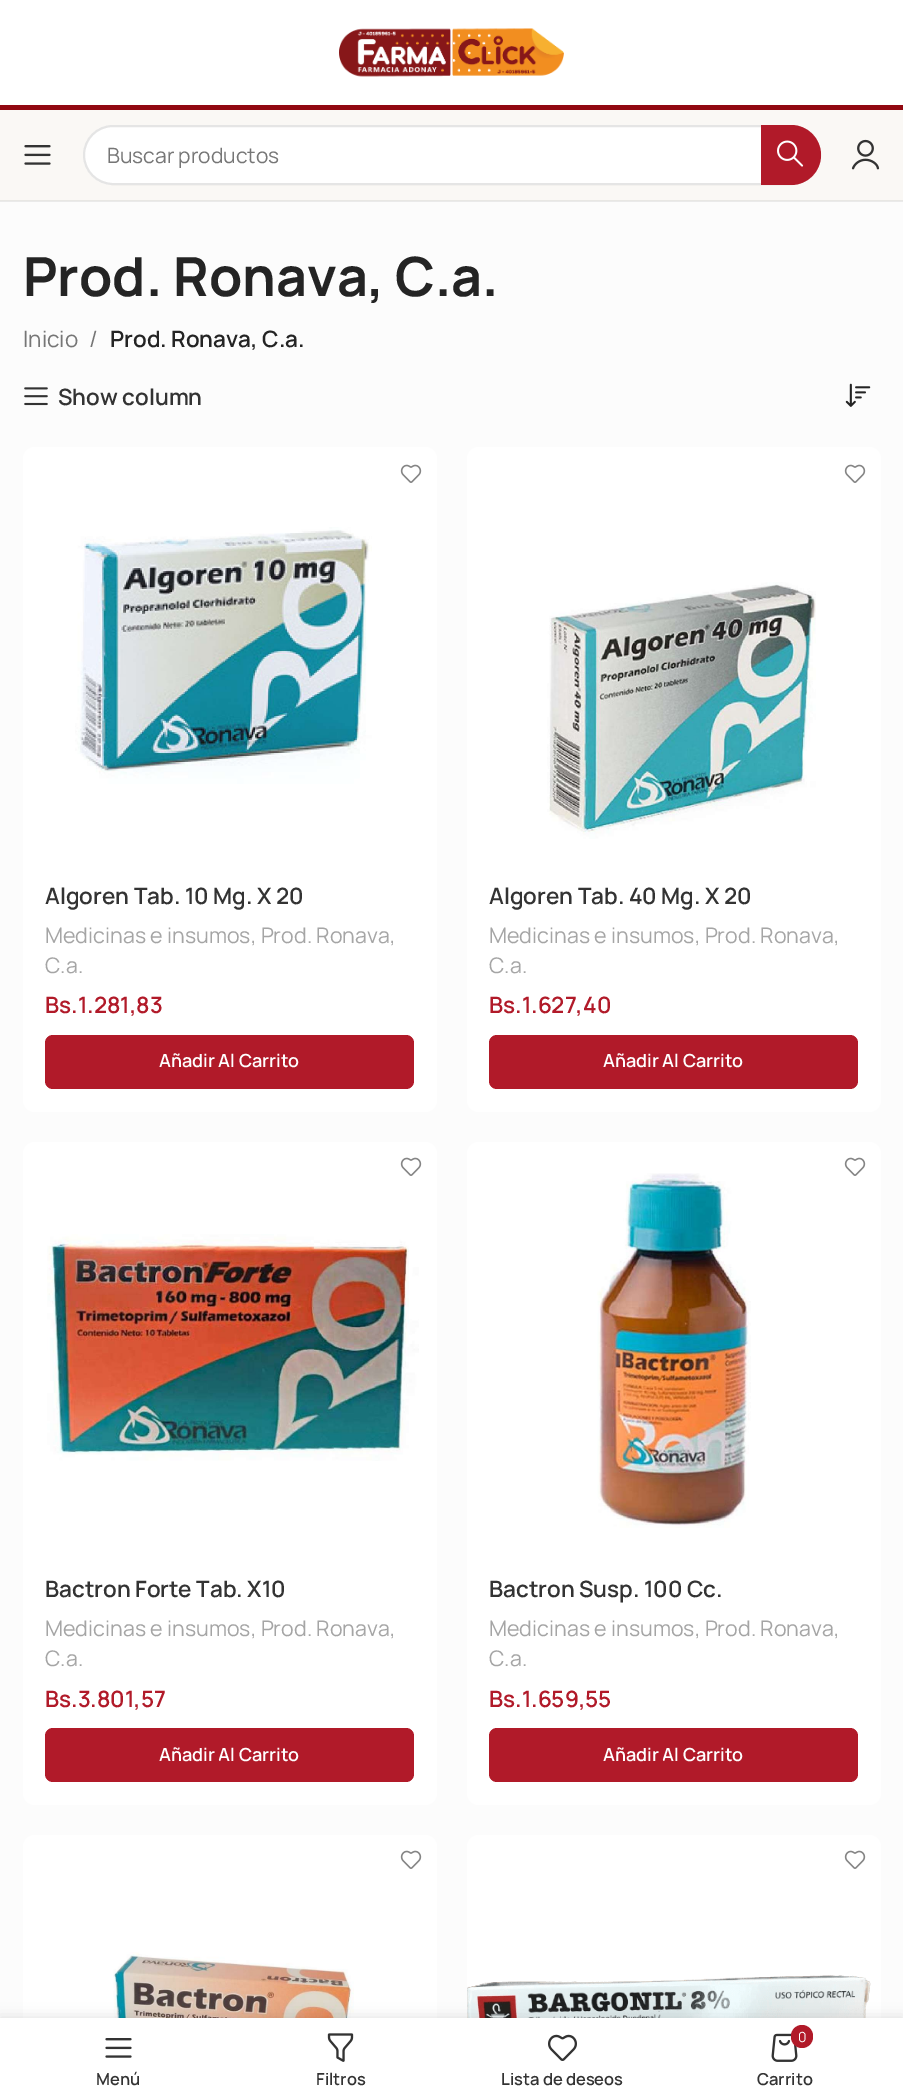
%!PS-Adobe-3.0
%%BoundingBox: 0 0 903 2100
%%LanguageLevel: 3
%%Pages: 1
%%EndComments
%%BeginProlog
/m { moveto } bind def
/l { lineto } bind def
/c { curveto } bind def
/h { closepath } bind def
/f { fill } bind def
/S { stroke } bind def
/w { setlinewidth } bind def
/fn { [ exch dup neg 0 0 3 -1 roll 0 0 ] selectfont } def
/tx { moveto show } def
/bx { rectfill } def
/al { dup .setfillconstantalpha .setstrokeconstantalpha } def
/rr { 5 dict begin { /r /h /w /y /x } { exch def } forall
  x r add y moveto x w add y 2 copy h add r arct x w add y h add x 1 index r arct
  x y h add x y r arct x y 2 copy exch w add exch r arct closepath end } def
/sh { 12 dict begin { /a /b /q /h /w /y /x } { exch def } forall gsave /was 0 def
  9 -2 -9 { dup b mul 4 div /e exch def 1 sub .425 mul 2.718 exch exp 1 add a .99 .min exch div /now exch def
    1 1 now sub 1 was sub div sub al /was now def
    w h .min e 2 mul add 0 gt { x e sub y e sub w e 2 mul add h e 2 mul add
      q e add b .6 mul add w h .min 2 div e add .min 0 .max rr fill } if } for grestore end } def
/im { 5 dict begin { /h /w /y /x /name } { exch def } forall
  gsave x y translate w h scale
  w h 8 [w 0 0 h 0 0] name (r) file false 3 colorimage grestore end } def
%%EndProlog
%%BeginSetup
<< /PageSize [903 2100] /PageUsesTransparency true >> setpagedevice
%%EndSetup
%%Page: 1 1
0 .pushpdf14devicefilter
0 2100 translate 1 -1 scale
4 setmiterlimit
1 setgray
0 0 903 2100 bx
0.569 0.031 0.067 setrgbcolor
0 105 903 5 bx
(image0.raw) 339 28 225 49 im
0.98 0.973 0.961 setrgbcolor
0 110 903 90 bx
0.91 0.906 0.894 setrgbcolor
0 200 903 1 bx
(image1.raw) 24 145 27 20 im
1 setgray
83 125 738 60 30 rr f
0.1 al
0 setgray
2 w
84 126 736 58 29 rr S
/Manrope-Regular 21 fn
1 al
0.463 setgray
(Buscar productos) 107 163 tx
0.694 0.102 0.161 setrgbcolor
761 125 m 791 125 l 807.5 125 821 138.5 821 155 c 821 171.5 807.5 185 791 185 c 761 185 l h f
(image2.raw) 777 140 27 27 im
(image3.raw) 851 139 29 31 im
0.988 setgray
0 202 903 1816 bx
0.918 setgray
0 201 903 1 bx
/Manrope-Bold 54 fn
0.141 setgray
(Prod. Ronava, C.a.) 23 296 tx
/Manrope-Regular 22.5 fn
0.463 setgray
(Inicio) 23 347 tx
(/) 89 347 tx
/Manrope-SemiBold 22.5 fn
0.141 setgray
(Prod. Ronava, C.a.) 110 347 tx
(image4.raw) 24 387 24 19 im
0.2 setgray
(Show column) 58 405 tx
(image5.raw) 845 383 26 24 im
1 setgray
23 447 414 665 12 rr f
(image6.raw) 400 464 22 19 im
(image7.raw) 75 527 297 257 im
0.2 setgray
(Algoren Tab. 10 Mg. X 20) 45 904 tx
/Manrope-Regular 21.4 fn
0.647 setgray
(Medicinas e insumos, Prod. Ronava,) 45 943 tx
(C.a.) 45 973 tx
/Manrope-SemiBold 22.5 fn
0.694 0.102 0.161 setrgbcolor
(Bs.1.281,83) 45 1013 tx
45 1035 369 54 8 rr f
/Manrope-SemiBold 18 fn
1 setgray
(Añadir Al Carrito) 159 1067 tx
467 447 414 665 12 rr f
(image6.raw) 844 464 22 19 im
(image8.raw) 547 582 269 257 im
/Manrope-SemiBold 22.5 fn
0.2 setgray
(Algoren Tab. 40 Mg. X 20) 489 904 tx
/Manrope-Regular 21.4 fn
0.647 setgray
(Medicinas e insumos, Prod. Ronava,) 489 943 tx
(C.a.) 489 973 tx
/Manrope-SemiBold 22.5 fn
0.694 0.102 0.161 setrgbcolor
(Bs.1.627,40) 489 1013 tx
489 1035 369 54 8 rr f
/Manrope-SemiBold 18 fn
1 setgray
(Añadir Al Carrito) 603 1067 tx
23 1142 414 663 12 rr f
(image6.raw) 400 1157 22 19 im
(image9.raw) 47 1234 372 227 im
/Manrope-SemiBold 22.5 fn
0.2 setgray
(Bactron Forte Tab. X10) 45 1597 tx
/Manrope-Regular 21.4 fn
0.647 setgray
(Medicinas e insumos, Prod. Ronava,) 45 1636 tx
(C.a.) 45 1666 tx
/Manrope-SemiBold 22.5 fn
0.694 0.102 0.161 setrgbcolor
(Bs.3.801,57) 45 1707 tx
45 1728 369 54 8 rr f
/Manrope-SemiBold 18 fn
1 setgray
(Añadir Al Carrito) 159 1761 tx
0.694 0.102 0.161 setrgbcolor
1.5 w
220.5 1764 m 215.5 1759 215.5 1751 220.5 1746 c S
1 setgray
467 1142 414 663 12 rr f
(image6.raw) 844 1157 22 19 im
(image10.raw) 597 1173 154 355 im
/Manrope-SemiBold 22.5 fn
0.2 setgray
(Bactron Susp. 100 Cc.) 489 1597 tx
/Manrope-Regular 21.4 fn
0.647 setgray
(Medicinas e insumos, Prod. Ronava,) 489 1636 tx
(C.a.) 489 1666 tx
/Manrope-SemiBold 22.5 fn
0.694 0.102 0.161 setrgbcolor
(Bs.1.659,55) 489 1707 tx
489 1728 369 54 8 rr f
/Manrope-SemiBold 18 fn
1 setgray
(Añadir Al Carrito) 603 1761 tx
0.694 0.102 0.161 setrgbcolor
664.5 1764 m 659.5 1759 659.5 1751 664.5 1746 c S
1 setgray
23 1835 414 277 12 rr f
(image6.raw) 400 1850 22 19 im
(image11.raw) 113 1952 241 66 im
467 1835 414 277 12 rr f
(image6.raw) 844 1850 22 19 im
(image12.raw) 467 1975 404 43 im
0 setgray
0 2018 903 82 0 7 0.12 sh
1 setgray
0 2018 903 82 bx
(image13.raw) 105 2038 27 20 im
/Manrope-SemiBold 16.5 fn
0.2 setgray
(Menú) 96 2085 tx
(image14.raw) 327 2033 27 29 im
(Filtros) 316 2085 tx
(image15.raw) 548 2034 29 27 im
(Lista de deseos) 501 2085 tx
(image16.raw) 771 2033 27 29 im
0.694 0.102 0.161 setrgbcolor
791 2025 22 23 11 rr f
/Manrope-Regular 14 fn
1 setgray
(0) 798 2042 tx
/Manrope-SemiBold 16.5 fn
0.2 setgray
(Carrito) 757 2085 tx
.poppdf14devicefilter showpage
%%EOF
